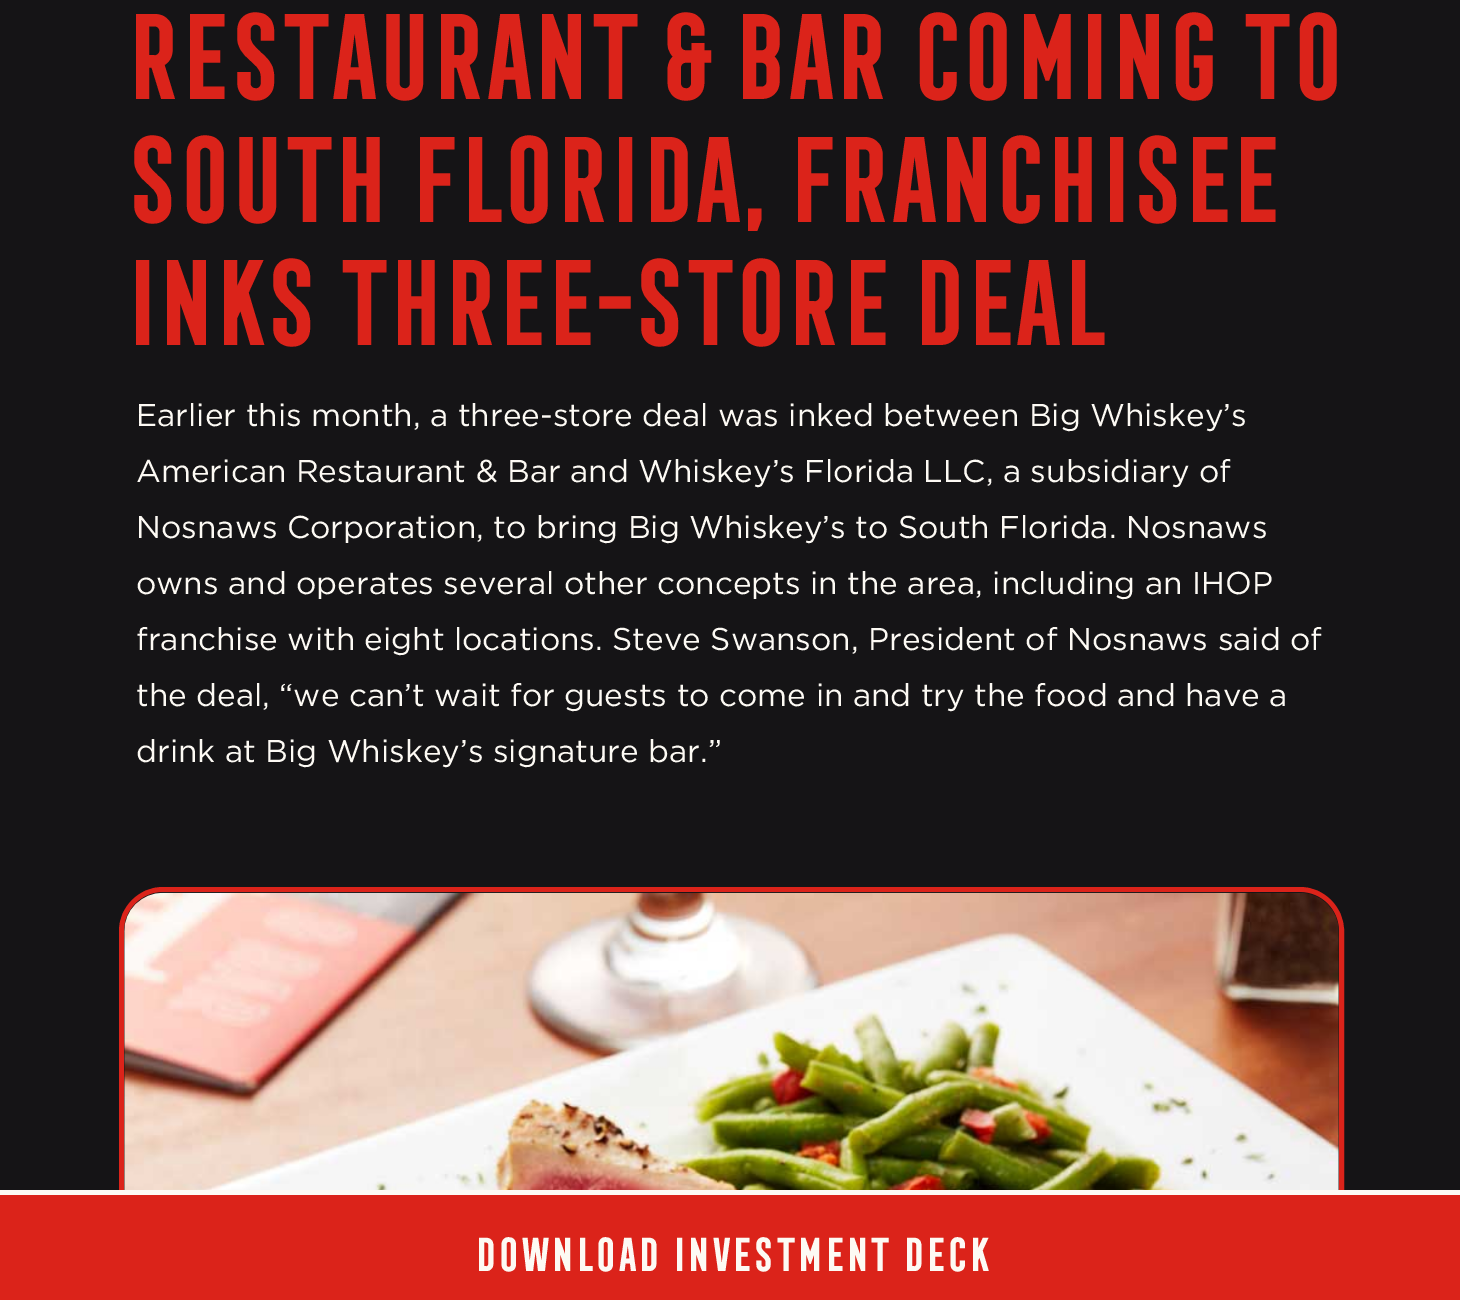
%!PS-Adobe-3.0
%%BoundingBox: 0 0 1460 1300
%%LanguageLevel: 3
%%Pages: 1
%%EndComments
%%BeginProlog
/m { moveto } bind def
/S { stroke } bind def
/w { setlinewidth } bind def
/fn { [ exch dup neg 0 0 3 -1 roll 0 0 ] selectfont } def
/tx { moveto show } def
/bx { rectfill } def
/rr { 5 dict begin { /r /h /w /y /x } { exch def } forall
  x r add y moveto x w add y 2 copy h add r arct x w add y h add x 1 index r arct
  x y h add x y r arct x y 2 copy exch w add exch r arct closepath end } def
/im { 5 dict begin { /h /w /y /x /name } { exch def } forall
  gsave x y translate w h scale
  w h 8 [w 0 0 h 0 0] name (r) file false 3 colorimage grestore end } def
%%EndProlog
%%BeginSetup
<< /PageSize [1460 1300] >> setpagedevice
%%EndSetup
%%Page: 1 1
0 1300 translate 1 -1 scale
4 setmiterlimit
0.082 0.078 0.086 setrgbcolor
0 0 1460 1300 bx
/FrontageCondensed-Bold 112 fn
0.859 0.137 0.102 setrgbcolor
118 99 m -11.2 0 (RESTAURANT & BAR COMING TO) ashow
118 222 m -11.2 0 (SOUTH FLORIDA, FRANCHISEE) ashow
118 345 m -11.2 0 (INKS THREE-STORE DEAL) ashow
/Gotham-Regular 31.5 fn
0.992 0.98 0.957 setrgbcolor
(Earlier this month, a three-store deal was inked between Big Whiskey’s) 136 426 tx
(American Restaurant & Bar and Whiskey’s Florida LLC, a subsidiary of) 136 482 tx
(Nosnaws Corporation, to bring Big Whiskey’s to South Florida. Nosnaws) 136 538 tx
(owns and operates several other concepts in the area, including an IHOP) 136 594 tx
(franchise with eight locations. Steve Swanson, President of Nosnaws said of) 136 650 tx
(the deal, “we can’t wait for guests to come in and try the food and have a) 136 706 tx
(drink at Big Whiskey’s signature bar.”) 136 762 tx
0.859 0.137 0.102 setrgbcolor
5 w
121.5 889.5 1220 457 41.5 rr S
(image0.raw) 124 892 1215 298 im
0.992 0.98 0.957 setrgbcolor
0 1190 1460 5 bx
0.859 0.137 0.102 setrgbcolor
0 1195 1460 105 bx
/FrontageCondensed-Bold 43.8 fn
0.992 0.98 0.957 setrgbcolor
472 1271 m -2.2 0 (DOWNLOAD INVESTMENT DECK) ashow
showpage
%%EOF
